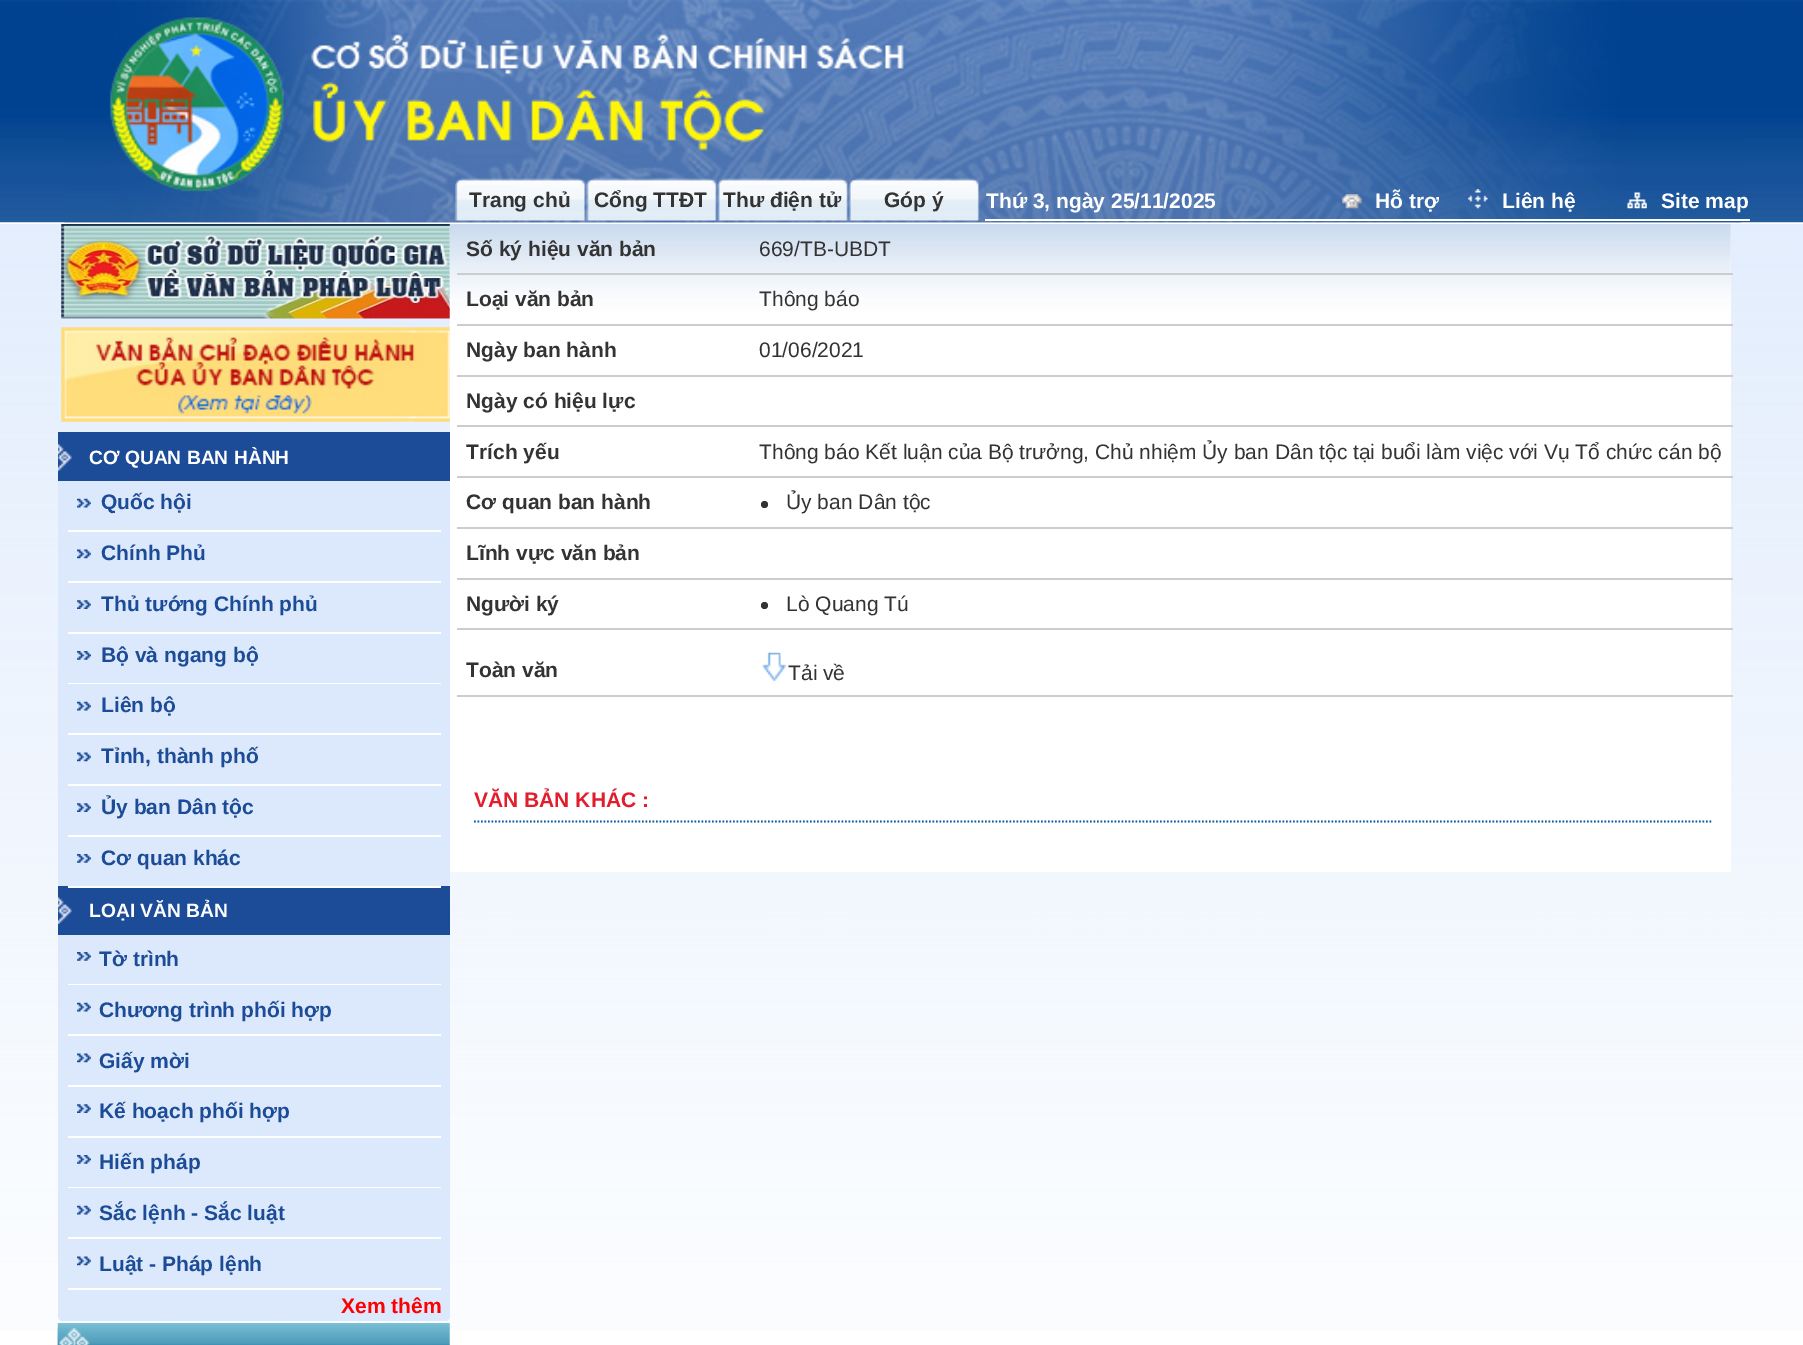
%!PS-Adobe-3.0
%%BoundingBox: 0 0 1803 1345
%%LanguageLevel: 3
%%Pages: 1
%%EndComments
%%BeginProlog
/m { moveto } bind def
/l { lineto } bind def
/c { curveto } bind def
/h { closepath } bind def
/f { fill } bind def
/S { stroke } bind def
/w { setlinewidth } bind def
/fn { [ exch dup neg 0 0 3 -1 roll 0 0 ] selectfont } def
/tx { moveto show } def
/bx { rectfill } def
/ci { newpath 0 360 arc closepath } def
/im { 5 dict begin { /h /w /y /x /name } { exch def } forall
  gsave x y translate w h scale
  w h 8 [w 0 0 h 0 0] name (r) file false 3 colorimage grestore end } def
%%EndProlog
%%BeginSetup
<< /PageSize [1803 1345] >> setpagedevice
%%EndSetup
%%Page: 1 1
0 1345 translate 1 -1 scale
4 setmiterlimit
1 setgray
0 0 1803 1345 bx
(image0.raw) 0 0 1803 223 im
(image1.raw) 64 0 1678 223 im
(image2.raw) 455 178 131 43 im
/LiberationSans-Bold 21 fn
0.2 setgray
(Trang chủ) 469 207 tx
(image3.raw) 586 178 131 43 im
(Cổng TTĐT) 594 207 tx
(image4.raw) 717 178 132 43 im
(Thư điện tử) 723 207 tx
(image5.raw) 848 178 132 43 im
(Góp ý) 884 207 tx
1 setgray
985 219 765 2 bx
(Thứ 3, ngày 25/11/2025) 986 208 tx
(image6.raw) 1342 194 20 15 im
(Hỗ trợ) 1375 208 tx
(image7.raw) 1468 189 20 20 im
(Liên hệ) 1502 208 tx
(image8.raw) 1627 192 20 17 im
(Site map) 1661 208 tx
(image9.raw) 0 224 1803 1106 im
(image10.raw) 61 224 389 95 im
(image11.raw) 61 327 389 95 im
0.11 0.298 0.596 setrgbcolor
58 432 392 49 bx
(image12.raw) 57 443 15 28 im
/LiberationSans-Bold 19.25 fn
1 setgray
(CƠ QUAN BAN HÀNH) 89 464 tx
0.863 0.914 0.988 setrgbcolor
58 481 m 450 481 l 450 882 l 450 885 448 887 445 887 c 63 887 l 60 887 58 885 58 882 c h f
(image13.raw) 77 498 14 10 im
1 setgray
68 530 373 2 bx
/LiberationSans-Bold 21 fn
0.11 0.298 0.592 setrgbcolor
(Quốc hội) 101 509 tx
(image14.raw) 77 549 14 10 im
1 setgray
68 581 373 2 bx
0.11 0.298 0.592 setrgbcolor
(Chính Phủ) 101 560 tx
(image15.raw) 77 600 14 9 im
1 setgray
68 632 373 2 bx
0.11 0.298 0.592 setrgbcolor
(Thủ tướng Chính phủ) 101 611 tx
(image16.raw) 77 651 14 9 im
1 setgray
68 683 373 1 bx
0.11 0.298 0.592 setrgbcolor
(Bộ và ngang bộ) 101 662 tx
(image13.raw) 77 701 14 10 im
1 setgray
68 733 373 2 bx
0.11 0.298 0.592 setrgbcolor
(Liên bộ) 101 712 tx
(image14.raw) 77 752 14 10 im
1 setgray
68 784 373 2 bx
0.11 0.298 0.592 setrgbcolor
(Tỉnh, thành phố) 101 763 tx
(image15.raw) 77 803 14 9 im
1 setgray
68 835 373 2 bx
0.11 0.298 0.592 setrgbcolor
(Ủy ban Dân tộc) 101 814 tx
(image16.raw) 77 854 14 9 im
0.11 0.298 0.596 setrgbcolor
58 886 392 49 bx
1 setgray
68 886 373 2 bx
0.11 0.298 0.592 setrgbcolor
(Cơ quan khác) 101 865 tx
(image17.raw) 58 896 14 28 im
/LiberationSans-Bold 19.25 fn
1 setgray
(LOẠI VĂN BẢN) 89 917 tx
0.863 0.914 0.988 setrgbcolor
58 935 m 450 935 l 450 1316 l 450 1319 448 1321 445 1321 c 63 1321 l 60 1321 58 1319 58 1316 c h f
(image16.raw) 77 952 14 9 im
1 setgray
68 984 373 1 bx
/LiberationSans-Bold 21 fn
0.11 0.298 0.592 setrgbcolor
(Tờ trình) 99 966 tx
(image13.raw) 77 1002 14 10 im
1 setgray
68 1034 373 2 bx
0.11 0.298 0.592 setrgbcolor
(Chương trình phối hợp) 99 1017 tx
(image14.raw) 77 1053 14 10 im
1 setgray
68 1085 373 2 bx
0.11 0.298 0.592 setrgbcolor
(Giấy mời) 99 1068 tx
(image15.raw) 77 1104 14 9 im
1 setgray
68 1136 373 2 bx
0.11 0.298 0.592 setrgbcolor
(Kế hoạch phối hợp) 99 1118 tx
(image16.raw) 77 1155 14 9 im
1 setgray
68 1187 373 1 bx
0.11 0.298 0.592 setrgbcolor
(Hiến pháp) 99 1169 tx
(image13.raw) 77 1205 14 10 im
1 setgray
68 1237 373 2 bx
0.11 0.298 0.592 setrgbcolor
(Sắc lệnh - Sắc luật) 99 1220 tx
(image14.raw) 77 1256 14 10 im
1 setgray
68 1288 373 2 bx
0.11 0.298 0.592 setrgbcolor
(Luật - Pháp lệnh) 99 1271 tx
1 0 0 setrgbcolor
(Xem thêm) 341 1313 tx
(image18.raw) 57 1323 393 22 im
(image19.raw) 57 1328 33 17 im
1 setgray
450 224 1281 648 bx
(image20.raw) 449 224 1282 142 im
0.2 setgray
(Số ký hiệu văn bản) 466 256 tx
0.8 setgray
457 273 1276 2 bx
/LiberationSans-Regular 21 fn
0.2 setgray
(669/TB-UBDT) 759 256 tx
/LiberationSans-Bold 21 fn
(Loại văn bản) 466 306 tx
0.8 setgray
457 324 1276 2 bx
/LiberationSans-Regular 21 fn
0.2 setgray
(Thông báo) 759 306 tx
/LiberationSans-Bold 21 fn
(Ngày ban hành) 466 357 tx
0.8 setgray
457 375 1276 2 bx
/LiberationSans-Regular 21 fn
0.2 setgray
(01/06/2021) 759 357 tx
/LiberationSans-Bold 21 fn
(Ngày có hiệu lực) 466 408 tx
0.8 setgray
457 425 1276 2 bx
0.2 setgray
(Trích yếu) 466 459 tx
0.8 setgray
457 476 1276 2 bx
/LiberationSans-Regular 21 fn
0.2 setgray
(Thông báo Kết luận của Bộ trưởng, Chủ nhiệm Ủy ban Dân tộc tại buổi làm việc với Vụ Tổ chức cán bộ) 759 459 tx
/LiberationSans-Bold 21 fn
(Cơ quan ban hành) 466 509 tx
0.8 setgray
457 527 1276 2 bx
0.2 setgray
764.5 504.5 3.5 ci f
/LiberationSans-Regular 21 fn
(Ủy ban Dân tộc) 786 509 tx
/LiberationSans-Bold 21 fn
(Lĩnh vực văn bản) 466 560 tx
0.8 setgray
457 578 1276 2 bx
0.2 setgray
(Người ký) 466 611 tx
0.8 setgray
457 628 1276 2 bx
0.2 setgray
764.5 605.5 3.5 ci f
/LiberationSans-Regular 21 fn
(Lò Quang Tú) 786 611 tx
/LiberationSans-Bold 21 fn
(Toàn văn) 466 677 tx
0.8 setgray
457 695 1276 2 bx
(image21.raw) 762 652 25 29 im
/LiberationSans-Regular 21 fn
0.2 setgray
(Tải về) 788 680 tx
/LiberationSans-Bold 21 fn
0.886 0.114 0.173 setrgbcolor
(VĂN BẢN KHÁC :) 474 807 tx
0.035 0.353 0.647 setrgbcolor
1.8 w
[1.75 1.75] 0 setdash
474 821.5 m 1713 821.5 l S
showpage
%%EOF
